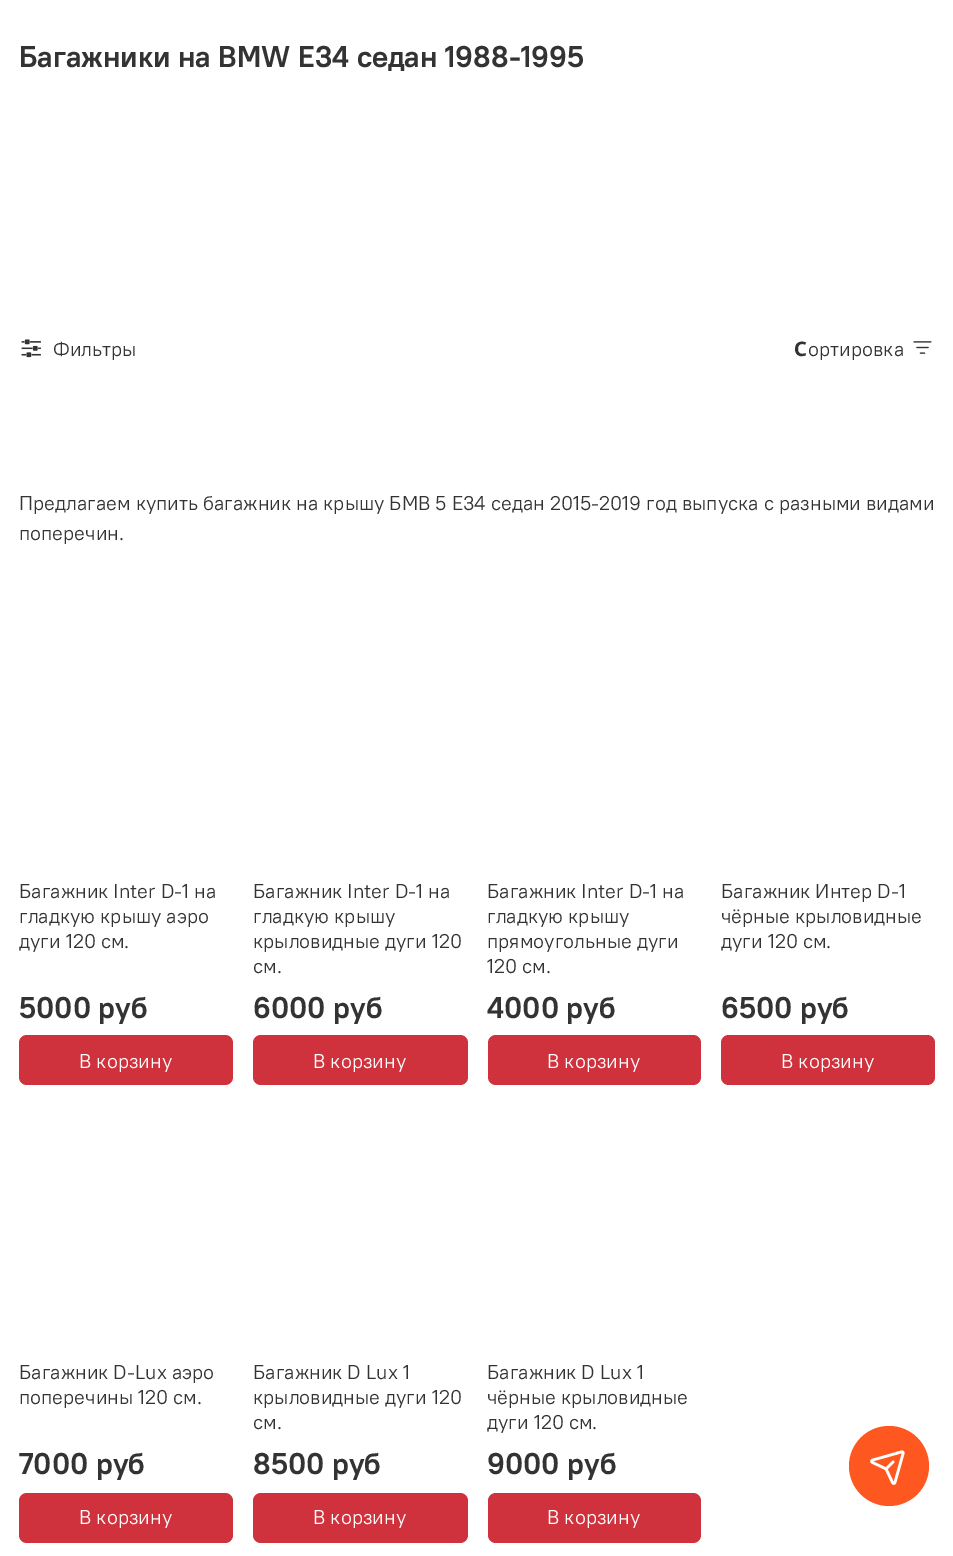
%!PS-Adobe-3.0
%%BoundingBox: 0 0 953 1556
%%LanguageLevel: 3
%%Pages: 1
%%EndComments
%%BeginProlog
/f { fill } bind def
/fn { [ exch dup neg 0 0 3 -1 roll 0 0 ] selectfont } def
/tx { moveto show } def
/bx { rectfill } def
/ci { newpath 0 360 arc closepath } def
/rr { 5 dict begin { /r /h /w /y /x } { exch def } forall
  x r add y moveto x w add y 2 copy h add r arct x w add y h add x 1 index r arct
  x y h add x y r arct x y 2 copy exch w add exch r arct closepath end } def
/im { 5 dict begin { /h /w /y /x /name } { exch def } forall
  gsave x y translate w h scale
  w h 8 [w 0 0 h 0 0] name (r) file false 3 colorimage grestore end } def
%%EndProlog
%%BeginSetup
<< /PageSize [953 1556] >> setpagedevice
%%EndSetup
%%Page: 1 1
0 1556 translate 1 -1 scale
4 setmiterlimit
1 setgray
0 0 953 1556 bx
/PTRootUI-Bold 30 fn
0.2 setgray
(Багажники на BMW E34 седан 1988-1995) 19 67 tx
(image0.raw) 21 339 20 19 im
/PTRootUI-Regular 20 fn
(Фильтры) 53 356 tx
/NotoSans-Bold 20 fn
(С) 794 356 tx
/PTRootUI-Regular 20 fn
(ортировка) 808 356 tx
(image1.raw) 913 341 19 13 im
(Предлагаем купить багажник на крышу БМВ 5 E34 седан 2015-2019 год выпуска с разными видами) 19 510 tx
(поперечин.) 19 540 tx
(Багажник Inter D-1 на) 19 898 tx
(гладкую крышу аэро) 19 923 tx
(дуги 120 см.) 19 948 tx
/PTRootUI-Bold 30 fn
(5000 руб) 19 1018 tx
0.816 0.196 0.239 setrgbcolor
19 1035 214 50 8 rr f
/PTRootUI-Regular 20 fn
1 setgray
(В корзину) 79 1068 tx
0.2 setgray
(Багажник Inter D-1 на) 253 898 tx
(гладкую крышу) 253 923 tx
(крыловидные дуги 120) 253 948 tx
(см.) 253 973 tx
/PTRootUI-Bold 30 fn
(6000 руб) 253 1018 tx
0.816 0.196 0.239 setrgbcolor
253 1035 215 50 8 rr f
/PTRootUI-Regular 20 fn
1 setgray
(В корзину) 313 1068 tx
0.2 setgray
(Багажник Inter D-1 на) 487 898 tx
(гладкую крышу) 487 923 tx
(прямоугольные дуги) 487 948 tx
(120 см.) 487 973 tx
/PTRootUI-Bold 30 fn
(4000 руб) 487 1018 tx
0.816 0.196 0.239 setrgbcolor
488 1035 213 50 8 rr f
/PTRootUI-Regular 20 fn
1 setgray
(В корзину) 547 1068 tx
0.2 setgray
(Багажник Интер D-1) 721 898 tx
(чёрные крыловидные) 721 923 tx
(дуги 120 см.) 721 948 tx
/PTRootUI-Bold 30 fn
(6500 руб) 721 1018 tx
0.816 0.196 0.239 setrgbcolor
721 1035 214 50 8 rr f
/PTRootUI-Regular 20 fn
1 setgray
(В корзину) 781 1068 tx
0.2 setgray
(Багажник D-Lux аэро) 19 1379 tx
(поперечины 120 см.) 19 1404 tx
/PTRootUI-Bold 30 fn
(7000 руб) 19 1474 tx
0.816 0.196 0.239 setrgbcolor
19 1493 214 50 8 rr f
/PTRootUI-Regular 20 fn
1 setgray
(В корзину) 79 1524 tx
0.2 setgray
(Багажник D Lux 1) 253 1379 tx
(крыловидные дуги 120) 253 1404 tx
(см.) 253 1429 tx
/PTRootUI-Bold 30 fn
(8500 руб) 253 1474 tx
0.816 0.196 0.239 setrgbcolor
253 1493 215 50 8 rr f
/PTRootUI-Regular 20 fn
1 setgray
(В корзину) 313 1524 tx
0.2 setgray
(Багажник D Lux 1) 487 1379 tx
(чёрные крыловидные) 487 1404 tx
(дуги 120 см.) 487 1429 tx
/PTRootUI-Bold 30 fn
(9000 руб) 487 1474 tx
0.816 0.196 0.239 setrgbcolor
488 1493 213 50 8 rr f
/PTRootUI-Regular 20 fn
1 setgray
(В корзину) 547 1524 tx
1 0.341 0.125 setrgbcolor
889 1466 40 ci f
(image2.raw) 870 1450 35 35 im
showpage
%%EOF
